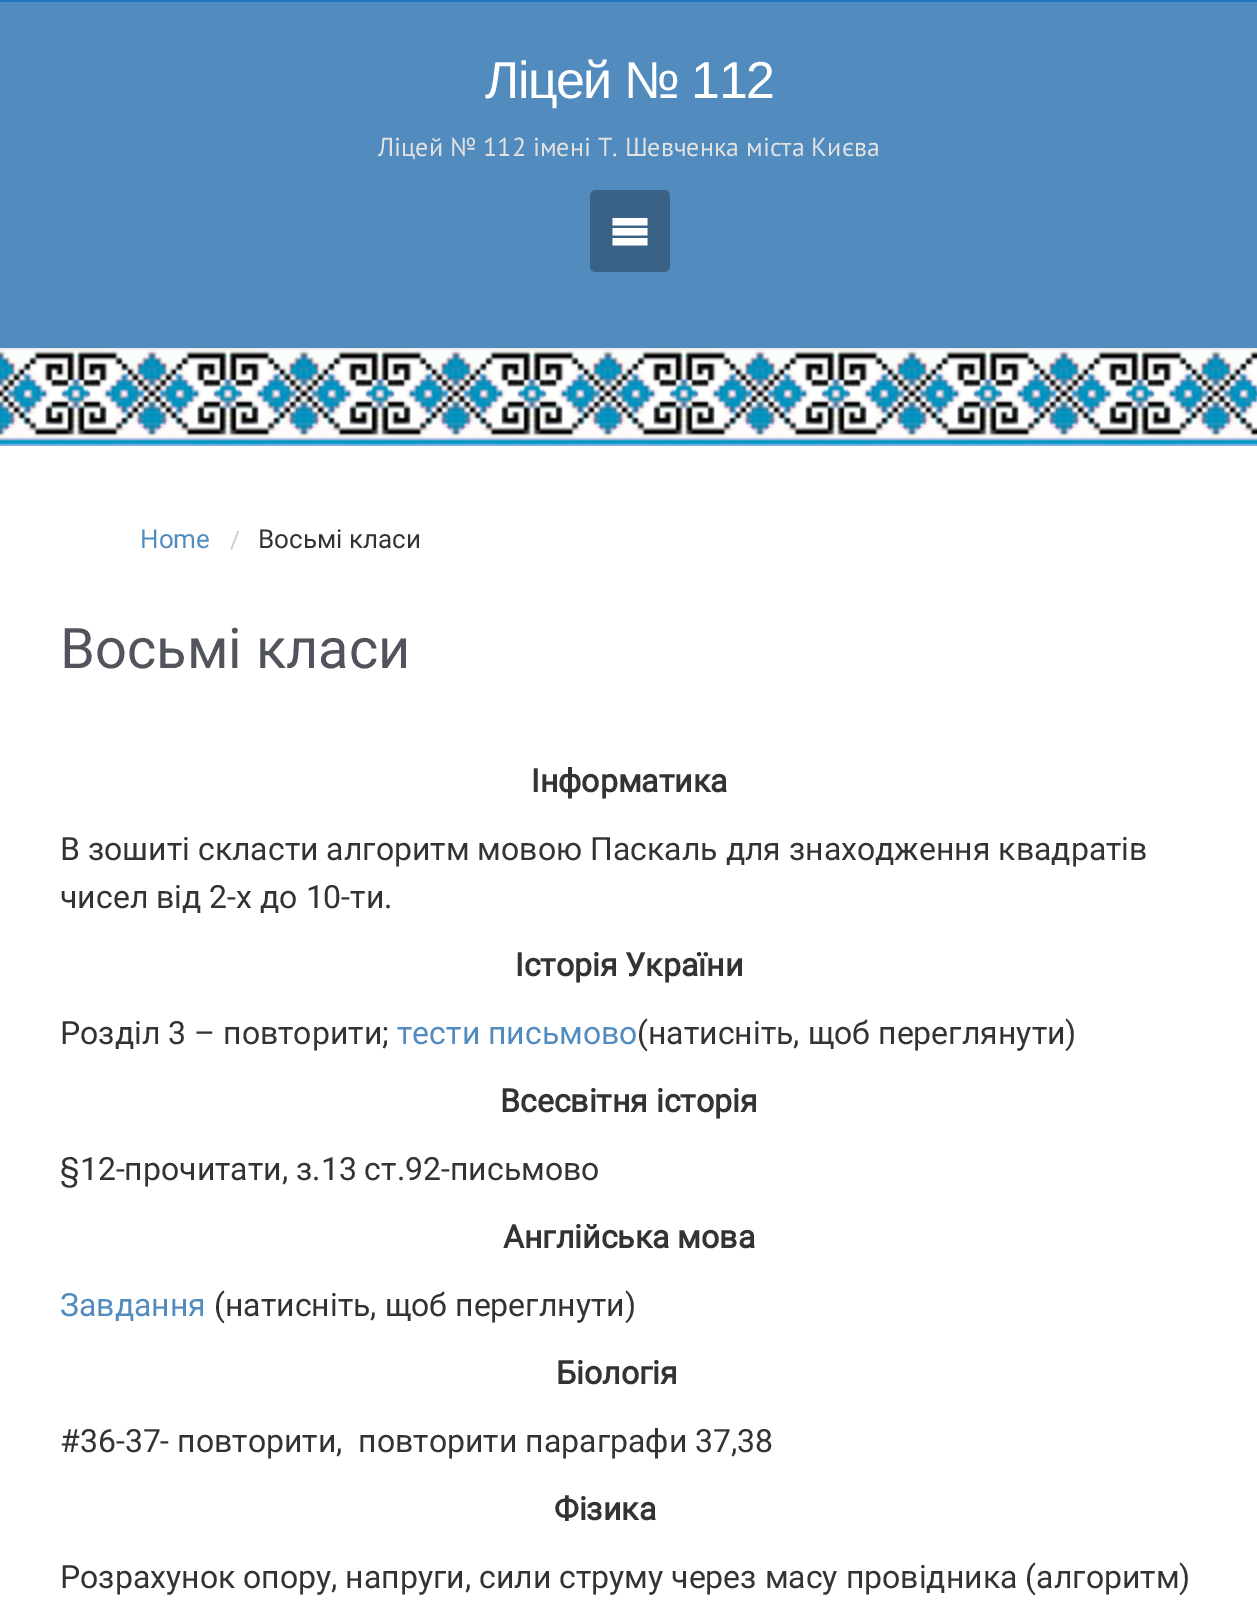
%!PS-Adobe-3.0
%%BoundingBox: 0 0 1257 1600
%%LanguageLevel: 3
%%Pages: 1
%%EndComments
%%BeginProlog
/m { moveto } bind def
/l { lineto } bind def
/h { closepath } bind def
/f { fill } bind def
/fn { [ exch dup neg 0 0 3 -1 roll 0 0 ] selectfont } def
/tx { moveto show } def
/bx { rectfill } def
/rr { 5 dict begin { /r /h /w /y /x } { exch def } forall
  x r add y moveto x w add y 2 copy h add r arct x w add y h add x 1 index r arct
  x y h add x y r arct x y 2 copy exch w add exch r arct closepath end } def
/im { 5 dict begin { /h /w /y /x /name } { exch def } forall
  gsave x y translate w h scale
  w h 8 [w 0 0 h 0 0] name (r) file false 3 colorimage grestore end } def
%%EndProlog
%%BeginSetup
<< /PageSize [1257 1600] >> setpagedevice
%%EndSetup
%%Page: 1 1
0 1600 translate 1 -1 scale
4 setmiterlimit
0.118 0.451 0.745 setrgbcolor
0 0 1257 1600 bx
0.322 0.549 0.749 setrgbcolor
0 2 1257 346 bx
/LiberationSans-Regular 52 fn
1 setgray
485 98 m -1.5 0 (Ліцей № 112) ashow
/PTSans-Regular 26 fn
0.886 setgray
(Ліцей № 112 імені Т. Шевченка міста Києва) 378 156 tx
0.224 0.384 0.525 setrgbcolor
590 190 80 82 6 rr f
1 setgray
612.5 218 m 647.5 218 l 647.5 225.5 l 612.5 225.5 l h 612.5 228 m 647.5 228 l 647.5 235.5 l 612.5 235.5 l h 612.5 238 m 647.5 238 l 647.5 245.5 l 612.5 245.5 l h f
(image0.raw) 0 348 1257 98 im
0 446 1257 1154 bx
/Roboto-Regular 26 fn
0.322 0.549 0.749 setrgbcolor
(Home) 140 548 tx
/Roboto-Regular 24 fn
0.8 setgray
(/) 230 548 tx
/Roboto-Regular 26 fn
0.2 setgray
(Восьмі класи) 258 548 tx
/Roboto-Regular 56 fn
0.318 0.329 0.361 setrgbcolor
(Восьмі класи) 60 668 tx
/Roboto-Bold 32 fn
0.2 setgray
(Інформатика) 531 792 tx
/Roboto-Regular 32 fn
(В зошиті скласти алгоритм мовою Паскаль для знаходження квадратів) 60 860 tx
(чисел від 2-х до 10-ти.) 60 908 tx
/Roboto-Bold 32 fn
(Історія України) 515 976 tx
/Roboto-Regular 32 fn
(Розділ 3 – повторити;) 60 1044 tx
0.322 0.549 0.749 setrgbcolor
(тести письмово) 397 1044 tx
0.2 setgray
(\(натисніть, щоб переглянути\)) 637 1044 tx
/Roboto-Bold 32 fn
(Всесвітня історія) 500 1112 tx
/Roboto-Regular 32 fn
(§12-прочитати, з.13 ст.92-письмово) 60 1180 tx
/Roboto-Bold 32 fn
(Англійська мова) 503 1248 tx
/Roboto-Regular 32 fn
0.322 0.549 0.749 setrgbcolor
(Завдання) 60 1316 tx
0.2 setgray
(\(натисніть, щоб переглнути\)) 214 1316 tx
/Roboto-Bold 32 fn
(Біологія) 556 1384 tx
/Roboto-Regular 32 fn
(#36-37- повторити,  повторити параграфи 37,38) 60 1452 tx
/Roboto-Bold 32 fn
(Фізика) 554 1520 tx
/Roboto-Regular 32 fn
(Розрахунок опору, напруги, сили струму через масу провідника \(алгоритм\)) 60 1588 tx
showpage
%%EOF
